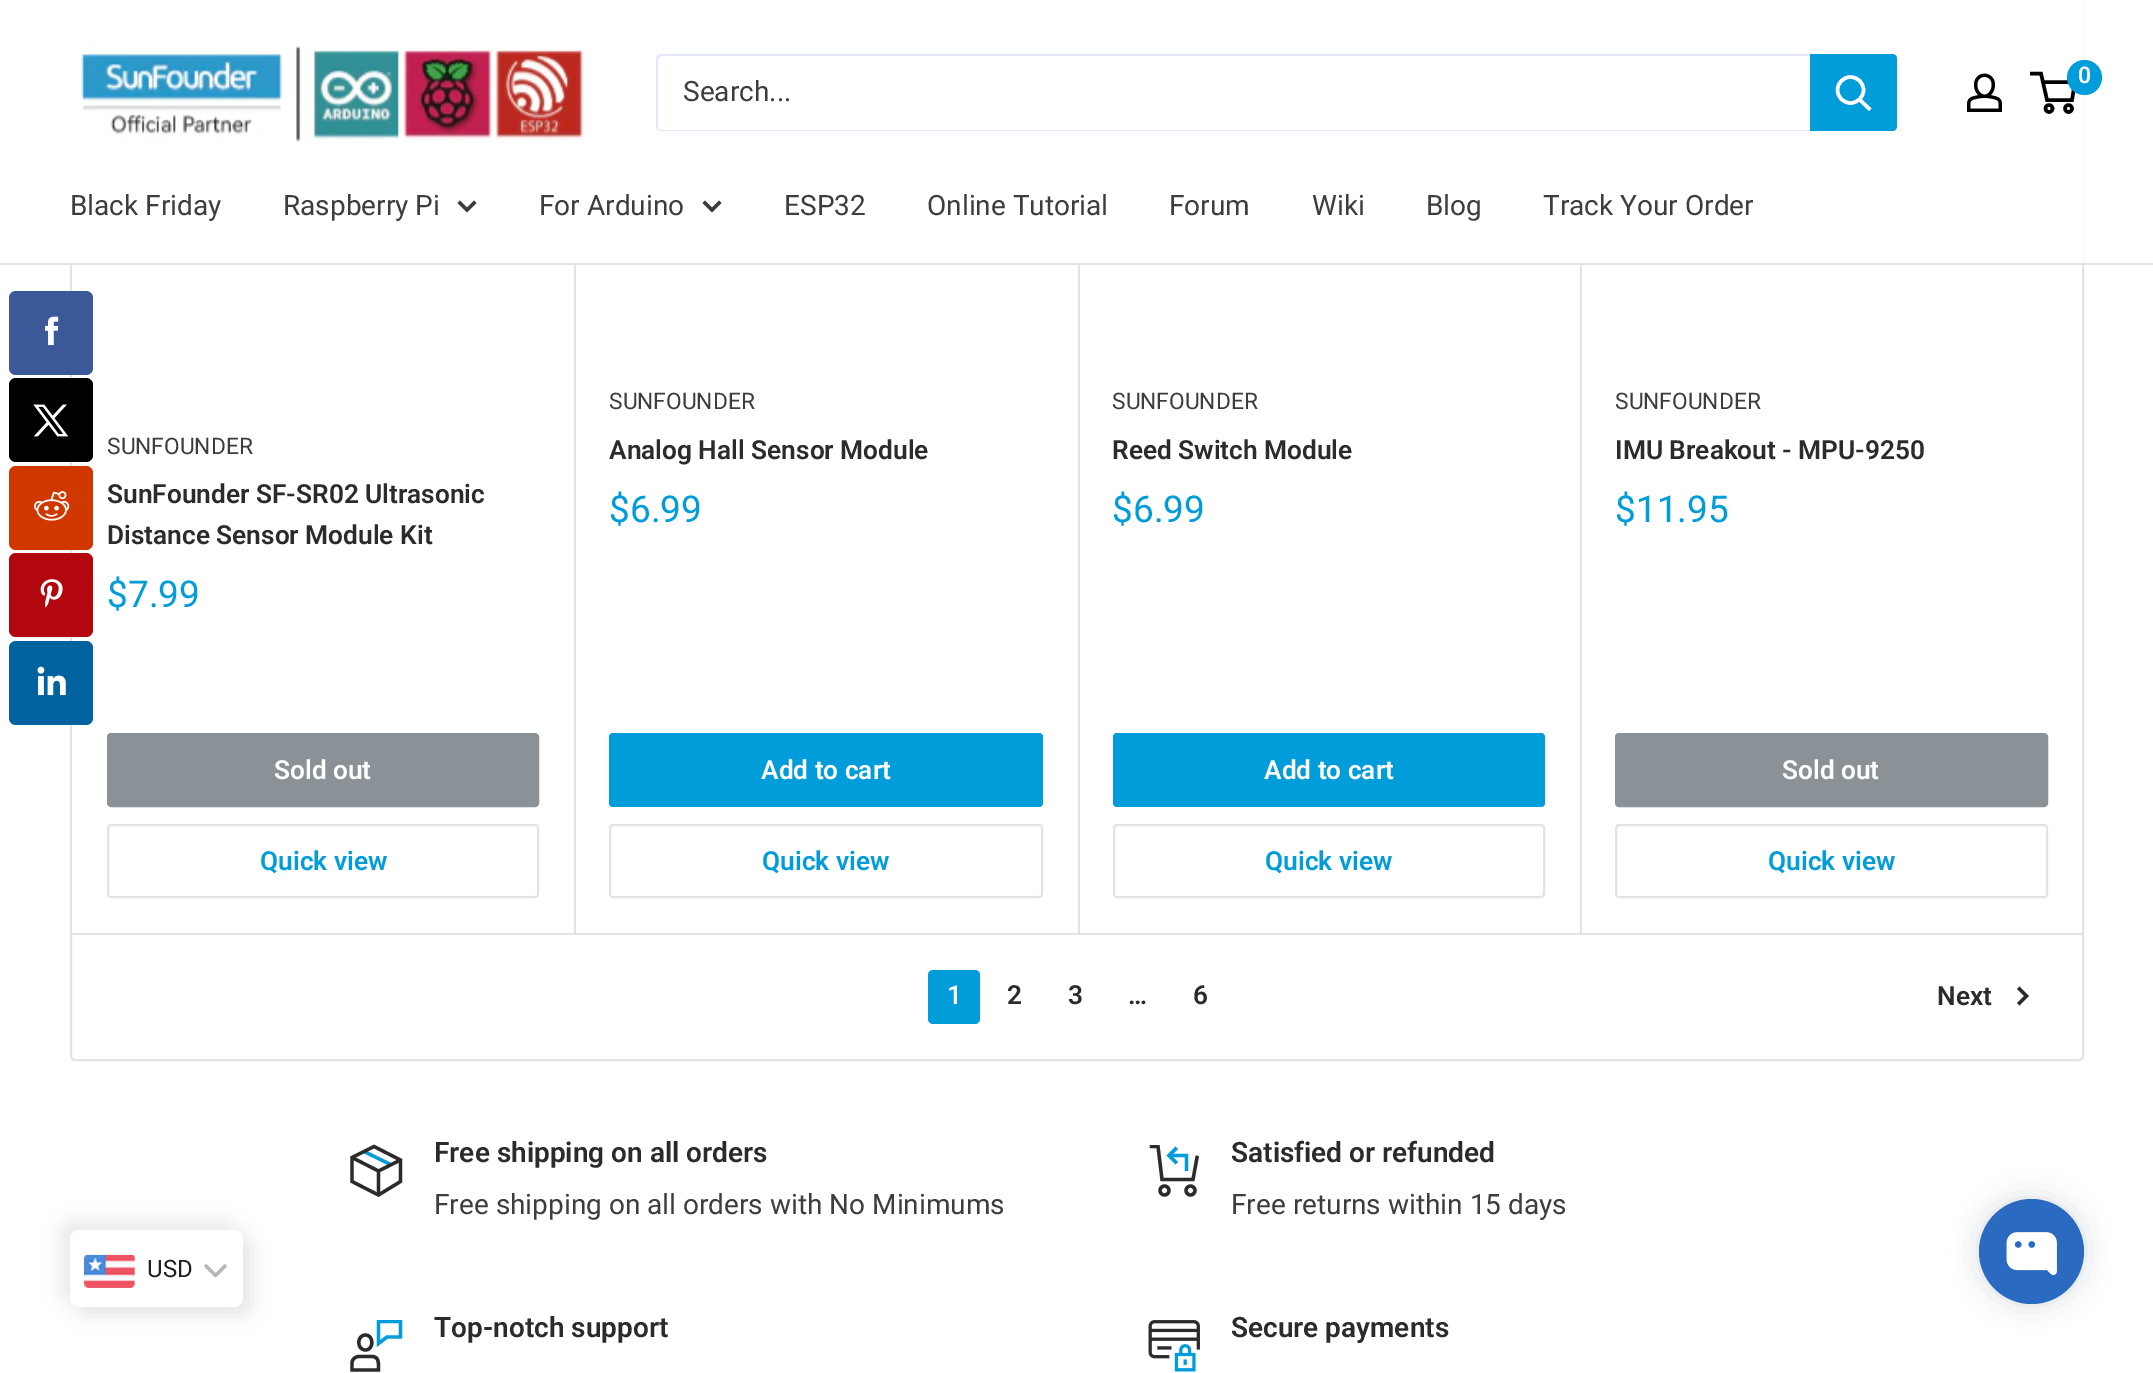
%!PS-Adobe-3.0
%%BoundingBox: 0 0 2153 1373
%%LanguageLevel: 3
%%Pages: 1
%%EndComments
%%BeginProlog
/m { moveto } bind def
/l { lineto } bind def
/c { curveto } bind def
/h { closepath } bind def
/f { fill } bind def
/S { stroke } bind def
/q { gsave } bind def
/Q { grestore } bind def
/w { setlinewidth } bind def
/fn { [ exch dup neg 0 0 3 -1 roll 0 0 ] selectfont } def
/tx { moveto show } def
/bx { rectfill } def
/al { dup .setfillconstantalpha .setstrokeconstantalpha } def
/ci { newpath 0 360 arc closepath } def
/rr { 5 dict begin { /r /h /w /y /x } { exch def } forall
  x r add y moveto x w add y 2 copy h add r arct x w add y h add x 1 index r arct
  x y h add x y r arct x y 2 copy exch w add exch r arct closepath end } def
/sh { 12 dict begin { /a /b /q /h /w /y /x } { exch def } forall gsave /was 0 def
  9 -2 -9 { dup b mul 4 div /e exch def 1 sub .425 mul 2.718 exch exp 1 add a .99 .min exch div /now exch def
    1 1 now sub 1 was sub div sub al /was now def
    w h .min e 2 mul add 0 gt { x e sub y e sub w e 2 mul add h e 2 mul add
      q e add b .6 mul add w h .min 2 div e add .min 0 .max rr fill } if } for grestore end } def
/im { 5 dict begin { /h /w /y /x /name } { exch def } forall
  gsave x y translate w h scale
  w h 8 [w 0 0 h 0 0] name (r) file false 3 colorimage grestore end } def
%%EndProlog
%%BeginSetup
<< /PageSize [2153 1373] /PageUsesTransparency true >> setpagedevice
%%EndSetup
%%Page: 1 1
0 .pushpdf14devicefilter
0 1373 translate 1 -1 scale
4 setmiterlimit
1 setgray
0 0 2153 1373 bx
0.882 0.89 0.894 setrgbcolor
2 w
71 -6 2012 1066 4 rr S
1 setgray
72 -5 2011 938 5 rr f
0.882 0.89 0.894 setrgbcolor
75 933 m 576 933 l 576 -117 l 574 -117 l 574 933 l h f
576 933 m 1080 933 l 1080 -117 l 1078 -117 l 1078 933 l h f
1 setgray
1580 -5 m 2083 -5 l 2083 928 l 2083 931 2081 933 2078 933 c 1580 933 l h f
0.882 0.89 0.894 setrgbcolor
1080 933 m 1582 933 l 1582 -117 l 1580 -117 l 1580 933 l h f
1582 933 m 2080 933 l h 2082 930 m 2083 928 l 2083 -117 l 2082 -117 l h eofill
1 setgray
70 0 2014 263 bx
(image0.raw) 81 46 503 96 im
(image1.raw) 1967 73 35 39 im
0 setgray
3.5 w
2049 108.5 3.5 ci S
2068.5 108.5 3.5 ci S
2043 82 m 2075 82 l 2072 100 l 2047 100 l 2041 73.5 l 2030 73.5 l S
0.004 0.612 0.855 setrgbcolor
2084.5 77.5 17.5 ci f
/Roboto-SemiBold 23 fn
1 setgray
(0) 2078 83 tx
0.89 0.906 0.98 setrgbcolor
657 129 m 658 130 659 131 661 131 c 1892 131 l 1895 131 1897 129 1897 126 c 1897 59 l 1897 57 1896 55 1894 54 c 1895 58 l 1895 124 l 1895 127 1893 130 1890 130 c 660 130 l h f
0.3 al
0.639 0.686 0.937 setrgbcolor
663 56 m 1894 56 l 1896 57 l 1896 55 1894 54 1892 54 c 661 54 l 658 54 656 56 656 59 c 656 126 l 656 128 657 129 658 130 c 658 128 l 658 61 l 658 58 660 56 663 56 c h f
/Roboto-Regular 28 fn
1 al
0.239 setgray
(Search...) 683 101 tx
0.004 0.612 0.855 setrgbcolor
1810 54 m 1892 54 l 1895 54 1897 56 1897 59 c 1897 126 l 1897 129 1895 131 1892 131 c 1810 131 l h f
1 setgray
2 setlinecap
1869 108.5 m 1860 100 l S
0 setlinecap
1850.5 90 13 ci S
0.882 0.89 0.894 setrgbcolor
0 263 2153 2 bx
0.239 setgray
(Black Friday) 70 215 tx
(Raspberry Pi) 283 215 tx
2 setlinecap
474 203 m 467 210 l 460 203 l S
(For Arduino) 539 215 tx
719 203 m 712 210 l 705 203 l S
(ESP32) 784 215 tx
(Online Tutorial) 927 215 tx
(Forum) 1169 215 tx
(Wiki) 1312 215 tx
(Blog) 1426 215 tx
(Track Your Order) 1543 215 tx
0.231 0.349 0.596 setrgbcolor
9 291 84 84 7 rr f
(image2.raw) 45 316 14 30 im
0 setgray
9 378 84 84 7 rr f
(image3.raw) 33 404 36 33 im
0.816 0.22 0 setrgbcolor
9 466 84 84 7 rr f
(image4.raw) 34 491 36 30 im
0.698 0.027 0.059 setrgbcolor
9 553 84 84 7 rr f
(image5.raw) 40 579 23 29 im
0 0.384 0.62 setrgbcolor
9 641 84 84 7 rr f
(image6.raw) 37 666 29 30 im
/Roboto-Regular 22.75 fn
0.239 setgray
(SUNFOUNDER) 107 454 tx
/Roboto-SemiBold 26.25 fn
0.169 setgray
(SunFounder SF-SR02 Ultrasonic) 107 503 tx
(Distance Sensor Module Kit) 107 544 tx
/Roboto-Regular 37 fn
0.004 0.612 0.855 setrgbcolor
($7.99) 107 607 tx
0.541 0.573 0.592 setrgbcolor
108 734 430 72 3 rr q f Q
2 w
0 setlinecap
S
/Roboto-SemiBold 26.25 fn
1 setgray
(Sold out) 274 779 tx
0.882 0.89 0.894 setrgbcolor
108 825 430 72 3 rr S
0.004 0.612 0.855 setrgbcolor
(Quick view) 260 870 tx
/Roboto-Regular 22.75 fn
0.239 setgray
(SUNFOUNDER) 609 409 tx
/Roboto-SemiBold 26.25 fn
0.169 setgray
(Analog Hall Sensor Module) 609 459 tx
/Roboto-Regular 37 fn
0.004 0.612 0.855 setrgbcolor
($6.99) 609 522 tx
609 733 434 74 4 rr f
/Roboto-SemiBold 26.25 fn
1 setgray
(Add to cart) 761 779 tx
0.882 0.89 0.894 setrgbcolor
610 825 432 72 3 rr S
0.004 0.612 0.855 setrgbcolor
(Quick view) 762 870 tx
/Roboto-Regular 22.75 fn
0.239 setgray
(SUNFOUNDER) 1112 409 tx
/Roboto-SemiBold 26.25 fn
0.169 setgray
(Reed Switch Module) 1112 459 tx
/Roboto-Regular 37 fn
0.004 0.612 0.855 setrgbcolor
($6.99) 1112 522 tx
1113 733 432 74 4 rr f
/Roboto-SemiBold 26.25 fn
1 setgray
(Add to cart) 1264 779 tx
0.882 0.89 0.894 setrgbcolor
1114 825 430 72 3 rr S
0.004 0.612 0.855 setrgbcolor
(Quick view) 1265 870 tx
/Roboto-Regular 22.75 fn
0.239 setgray
(SUNFOUNDER) 1615 409 tx
/Roboto-SemiBold 26.25 fn
0.169 setgray
(IMU Breakout - MPU-9250) 1615 459 tx
/Roboto-Regular 37 fn
0.004 0.612 0.855 setrgbcolor
($11.95) 1615 522 tx
0.541 0.573 0.592 setrgbcolor
1616 734 431 72 3 rr q f Q
S
/Roboto-SemiBold 26.25 fn
1 setgray
(Sold out) 1782 779 tx
0.882 0.89 0.894 setrgbcolor
1616 825 431 72 3 rr S
0.004 0.612 0.855 setrgbcolor
(Quick view) 1768 870 tx
0.882 0.89 0.894 setrgbcolor
72 933 2011 2 bx
0.004 0.612 0.855 setrgbcolor
928 970 52 54 5 rr f
1 setgray
(1) 947 1004 tx
0.169 setgray
(2) 1007 1004 tx
(3) 1068 1004 tx
(…) 1128 1004 tx
(6) 1193 1004 tx
(Next) 1937 1005 tx
3.5 w
2 setlinecap
2019.5 989 m 2026.5 996 l 2019.5 1003 l S
0.91 setgray
61 1222 174 77 9 9 1 sh
79 1239 173 77 9 9 1 sh
1 setgray
70 1230 173 77 9 rr f
(image7.raw) 84 1254 51 34 im
/Roboto-Regular 24 fn
0.118 setgray
(USD) 147 1277 tx
0.718 setgray
3.2 w
1 setlinecap
1 setlinejoin
206 1266 m 215.5 1275.5 l 225 1266 l S
0.004 0.612 0.855 setrgbcolor
3.3 w
0 setlinecap
0 setlinejoin
364 1151.5 m 390.5 1164.5 l S
0.169 setgray
400.5 1160 m 378.5 1171 l 352 1157.5 l 378.5 1171 m 378.5 1195 l S
2 setlinecap
400.5 1160 m 400.5 1181.5 l 378.5 1195 l 352 1181.5 l 352 1157.5 l 374 1146.5 l h S
/Roboto-SemiBold 28 fn
(Free shipping on all orders) 434 1162 tx
/Roboto-Regular 28 fn
0.239 setgray
(Free shipping on all orders with No Minimums) 434 1214 tx
0.004 0.612 0.855 setrgbcolor
0 setlinecap
1169 1155.5 m 1186.5 1155.5 l 1186.5 1171 l S
2 setlinecap
1175.5 1162 m 1169 1155.5 l 1175.5 1149 l S
q
1148 1145 53 52 rectclip
0.169 setgray
1197 1157.5 m 1193 1179.5 l 1162 1179.5 l 1158 1146.5 l 1151.5 1146.5 l S
Q
0.169 setgray
0 setlinecap
1164.5 1190.5 4.5 ci S
1190.5 1190.5 4.5 ci S
/Roboto-SemiBold 28 fn
(Satisfied or refunded) 1231 1162 tx
/Roboto-Regular 28 fn
0.239 setgray
(Free returns within 15 days) 1231 1214 tx
0.169 setgray
2 setlinecap
372 1356.5 m 359 1356.5 l 355 1356.5 352 1359.5 352 1363 c 352 1370 l 378.5 1370 l 378.5 1364.5 379.5 1356.5 372 1356.5 c h 365.5 1350 m 356.5 1350 356.5 1335 365.5 1335 c 374 1335 374 1350 365.5 1350 c h S
q
350 1320 53 52 rectclip
0.004 0.612 0.855 setrgbcolor
378.5 1321.5 m 378.5 1343.5 l 387 1337 l 400.5 1337 l 400.5 1321.5 l h S
Q
/Roboto-SemiBold 28 fn
(Top-notch support) 434 1337 tx
(image8.raw) 1148 1320 52 52 im
(Secure payments) 1231 1337 tx
0 0.071 0.18 setrgbcolor
1979 1199 105 105 52.5 14 0.16 sh
0.165 0.416 0.757 setrgbcolor
2031.5 1251.5 52.5 ci f
(image9.raw) 2006 1232 51 43 im
.poppdf14devicefilter showpage
%%EOF
